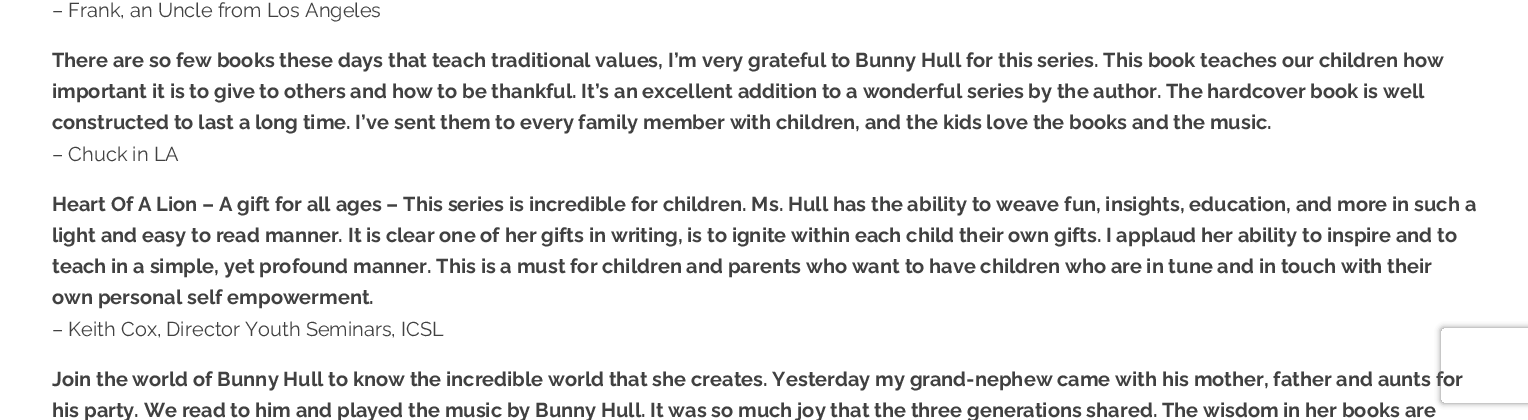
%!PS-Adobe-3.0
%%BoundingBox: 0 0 1528 420
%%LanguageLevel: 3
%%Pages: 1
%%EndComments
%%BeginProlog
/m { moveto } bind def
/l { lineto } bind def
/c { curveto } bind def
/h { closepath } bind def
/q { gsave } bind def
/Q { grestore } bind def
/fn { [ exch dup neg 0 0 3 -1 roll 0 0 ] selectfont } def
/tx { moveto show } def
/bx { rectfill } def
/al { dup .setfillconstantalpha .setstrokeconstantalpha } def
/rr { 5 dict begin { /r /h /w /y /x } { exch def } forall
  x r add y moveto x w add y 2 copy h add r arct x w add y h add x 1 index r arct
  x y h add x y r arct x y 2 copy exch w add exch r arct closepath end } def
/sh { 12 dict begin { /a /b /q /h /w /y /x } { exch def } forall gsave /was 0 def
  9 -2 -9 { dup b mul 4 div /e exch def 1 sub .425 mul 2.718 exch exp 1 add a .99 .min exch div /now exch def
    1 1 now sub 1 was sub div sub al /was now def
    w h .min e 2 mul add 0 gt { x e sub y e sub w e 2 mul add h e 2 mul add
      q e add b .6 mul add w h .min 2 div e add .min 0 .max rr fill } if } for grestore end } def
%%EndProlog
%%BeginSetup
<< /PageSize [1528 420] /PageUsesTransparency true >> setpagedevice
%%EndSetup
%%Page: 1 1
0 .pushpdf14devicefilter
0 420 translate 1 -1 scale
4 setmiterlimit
1 setgray
0 0 1528 420 bx
/Raleway-Regular 20 fn
0.255 setgray
(– Frank, an Uncle from Los Angeles) 52 17 tx
/Raleway-Bold 20 fn
(There are so few books these days that teach traditional values, I’m very grateful to Bunny Hull for this series. This book teaches our children how) 52 67 tx
(important it is to give to others and how to be thankful. It’s an excellent addition to a wonderful series by the author. The hardcover book is well) 52 98 tx
(constructed to last a long time. I’ve sent them to every family member with children, and the kids love the books and the music.) 52 129 tx
/Raleway-Regular 20 fn
(– Chuck in LA) 52 161 tx
/Raleway-Bold 20 fn
(Heart Of A Lion – A gift for all ages – This series is incredible for children. Ms. Hull has the ability to weave fun, insights, education, and more in such a) 52 211 tx
(light and easy to read manner. It is clear one of her gifts in writing, is to ignite within each child their own gifts. I applaud her ability to inspire and to) 52 242 tx
(teach in a simple, yet profound manner. This is a must for children and parents who want to have children who are in tune and in touch with their) 52 273 tx
(own personal self empowerment.) 52 304 tx
/Raleway-Regular 20 fn
(– Keith Cox, Director Youth Seminars, ICSL) 52 336 tx
/Raleway-Bold 20 fn
(Join the world of Bunny Hull to know the incredible world that she creates. Yesterday my grand-nephew came with his mother, father and aunts for) 52 386 tx
(his party. We read to him and played the music by Bunny Hull. It was so much joy that the three generations shared. The wisdom in her books are) 52 417 tx
q
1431 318 m 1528 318 l 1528 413 l 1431 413 l h 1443.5 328 m 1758.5 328 l 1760 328 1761 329 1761 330.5 c 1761 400.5 l 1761 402 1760 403 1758.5 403 c 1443.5 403 l 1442 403 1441 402 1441 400.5 c 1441 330.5 l 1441 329 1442 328 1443.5 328 c h eoclip newpath
0.502 setgray
1441 328 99 75 2.5 3 1 sh
Q
.poppdf14devicefilter showpage
%%EOF
